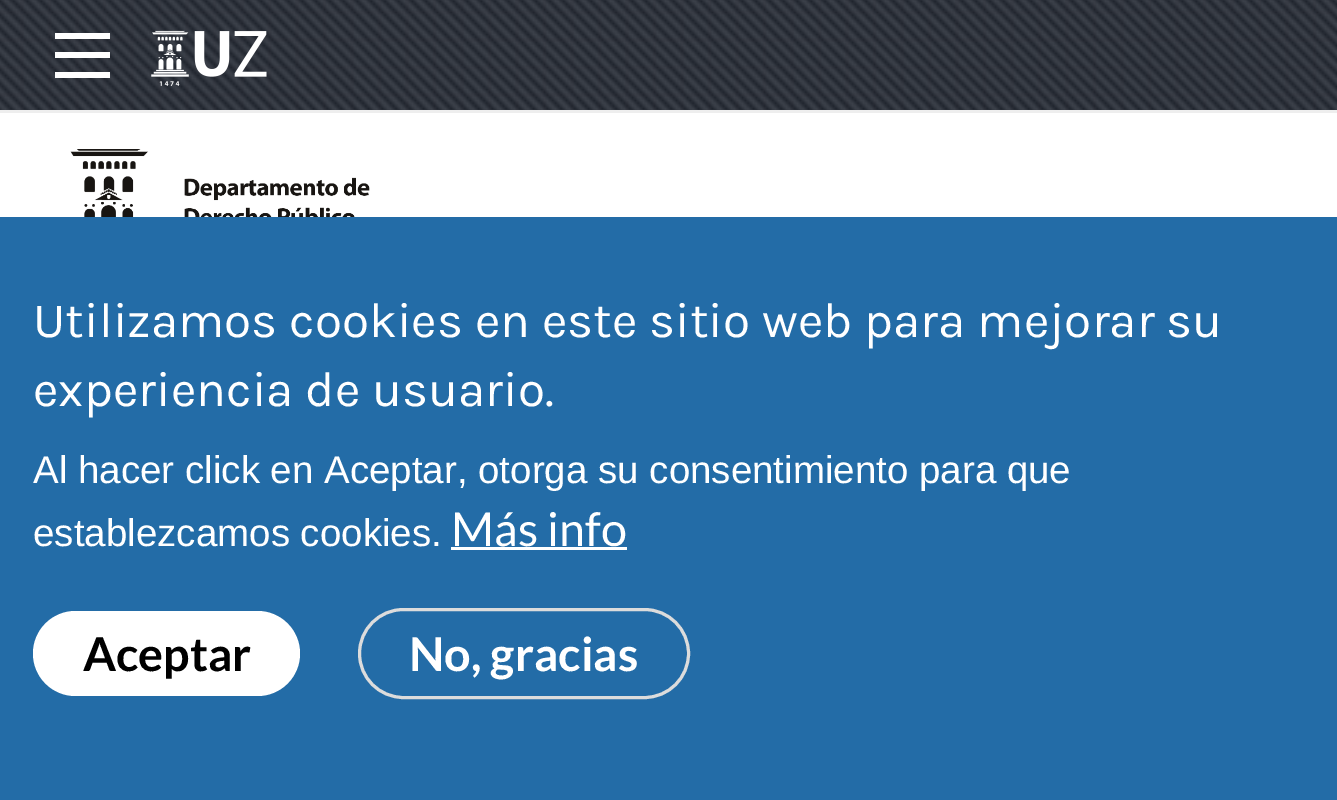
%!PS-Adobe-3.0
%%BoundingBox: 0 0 1337 800
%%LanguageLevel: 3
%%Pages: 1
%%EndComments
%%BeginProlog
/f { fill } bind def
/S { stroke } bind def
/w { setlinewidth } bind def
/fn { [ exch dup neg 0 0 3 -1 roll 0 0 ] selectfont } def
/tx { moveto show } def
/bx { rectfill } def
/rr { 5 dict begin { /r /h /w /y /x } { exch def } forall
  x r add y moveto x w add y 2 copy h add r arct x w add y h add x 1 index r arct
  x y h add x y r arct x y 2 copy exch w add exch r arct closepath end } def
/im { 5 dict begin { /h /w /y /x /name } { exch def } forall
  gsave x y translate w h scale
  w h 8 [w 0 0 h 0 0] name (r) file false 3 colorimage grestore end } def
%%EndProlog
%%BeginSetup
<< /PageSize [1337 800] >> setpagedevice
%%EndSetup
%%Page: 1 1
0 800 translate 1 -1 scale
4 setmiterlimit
1 setgray
0 0 1337 800 bx
0.141 0.161 0.2 setrgbcolor
0 0 1337 110 bx
(image0.raw) 0 0 1337 110 im
0.933 setgray
0 110 1337 3 bx
1 setgray
55 52 55 6 bx
55 33 55 6 bx
55 72 55 6 bx
(image1.raw) 151 30 116 56 im
(image2.raw) 70 149 300 68 im
0.137 0.424 0.655 setrgbcolor
0 217 1337 583 bx
/Karla-Regular 49.5 fn
1 setgray
(Utilizamos cookies en este sitio web para mejorar su) 33 337 tx
(experiencia de usuario.) 33 406 tx
/LiberationSans-Regular 38.5 fn
(Al hacer click en Aceptar, otorga su consentimiento para que) 33 483 tx
(establezcamos cookies.) 33 546 tx
/Lato-Regular 46.75 fn
(Más info) 451 546 tx
451 547 176 3 bx
33 611 267 85 42.5 rr f
/Lato-Bold 46.75 fn
0 setgray
(Aceptar) 83 671 tx
0.863 setgray
3 w
359.5 609.5 329 88 44 rr S
1 setgray
(No, gracias) 409 671 tx
showpage
%%EOF
